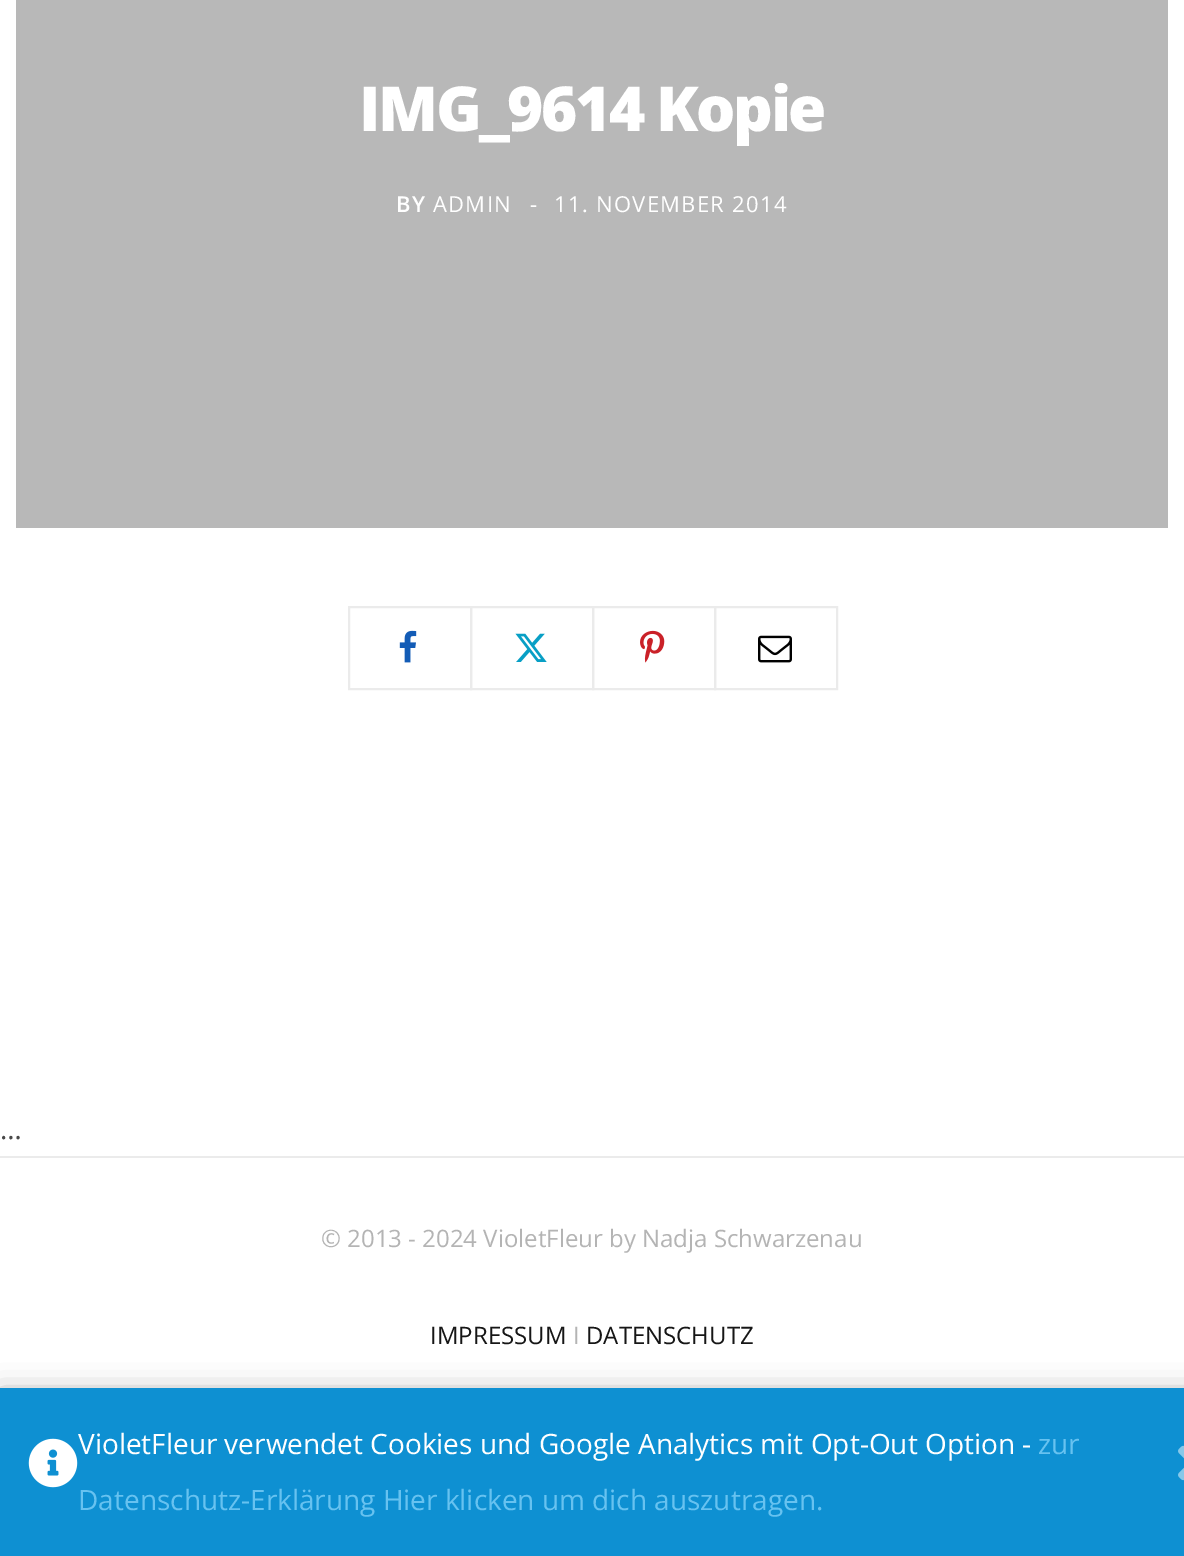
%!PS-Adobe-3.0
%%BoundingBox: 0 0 1184 1556
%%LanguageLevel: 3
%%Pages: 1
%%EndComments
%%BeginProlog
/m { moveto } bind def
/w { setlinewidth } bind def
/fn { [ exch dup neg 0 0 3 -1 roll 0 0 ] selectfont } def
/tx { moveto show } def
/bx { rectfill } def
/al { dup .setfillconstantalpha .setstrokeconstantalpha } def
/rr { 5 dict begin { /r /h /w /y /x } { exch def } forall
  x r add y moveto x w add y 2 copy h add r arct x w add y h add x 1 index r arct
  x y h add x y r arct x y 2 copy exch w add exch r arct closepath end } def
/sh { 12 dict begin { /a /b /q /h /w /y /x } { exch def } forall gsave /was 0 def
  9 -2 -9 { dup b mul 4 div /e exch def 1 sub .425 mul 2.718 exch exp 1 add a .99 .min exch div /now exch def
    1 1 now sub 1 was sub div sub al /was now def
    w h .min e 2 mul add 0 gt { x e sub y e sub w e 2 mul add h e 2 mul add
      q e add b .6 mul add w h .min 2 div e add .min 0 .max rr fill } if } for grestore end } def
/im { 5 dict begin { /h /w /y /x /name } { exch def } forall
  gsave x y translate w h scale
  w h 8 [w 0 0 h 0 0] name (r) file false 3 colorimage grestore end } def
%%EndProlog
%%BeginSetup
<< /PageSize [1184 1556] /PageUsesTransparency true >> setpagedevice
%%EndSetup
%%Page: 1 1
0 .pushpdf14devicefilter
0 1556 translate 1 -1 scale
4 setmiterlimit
1 setgray
0 0 1184 1556 bx
0.722 setgray
16 0 1152 528 bx
/OpenSans-ExtraBold 62 fn
1 setgray
359 131 m -2.5 0 (IMG_9614 Kopie) ashow
/OpenSans-SemiBold 22 fn
396 212 m 1.3 0 (BY) ashow
/OpenSans-Regular 22 fn
433 212 m 1.3 0 (ADMIN) ashow
(-) 530 212 tx
554 212 m 1.3 0 (11. NOVEMBER 2014) ashow
0.922 setgray
2 w
349 607 122 82 rectstroke
(image0.raw) 399 630 18 33 im
471 607 122 82 rectstroke
(image1.raw) 515 633 32 29 im
593 607 122 82 rectstroke
(image2.raw) 640 630 25 33 im
715 607 122 82 rectstroke
(image3.raw) 758 635 34 28 im
/OpenSans-Regular 28 fn
0.286 setgray
(…) 0 1139 tx
0.922 setgray
0 1156 1184 2 bx
/OpenSans-Regular 24 fn
0.706 setgray
(© 2013 - 2024 VioletFleur by Nadja Schwarzenau) 321 1247 tx
0.086 setgray
(IMPRESSUM) 430 1344 tx
0.706 setgray
(I) 573 1344 tx
0.086 setgray
(DATENSCHUTZ) 586 1344 tx
0 setgray
0 1396 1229 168 0 15 0.4 sh
0.055 0.565 0.824 setrgbcolor
0 1388 1184 168 bx
(image4.raw) 28 1438 50 50 im
/OpenSans-Regular 28 fn
1 setgray
(VioletFleur verwendet Cookies und Google Analytics mit Opt-Out Option -) 78 1454 tx
0.404 0.761 0.941 setrgbcolor
(zur) 1038 1454 tx
(Datenschutz-Erklärung Hier klicken um dich auszutragen.) 78 1510 tx
(image5.raw) 1178 1445 6 36 im
.poppdf14devicefilter showpage
%%EOF
